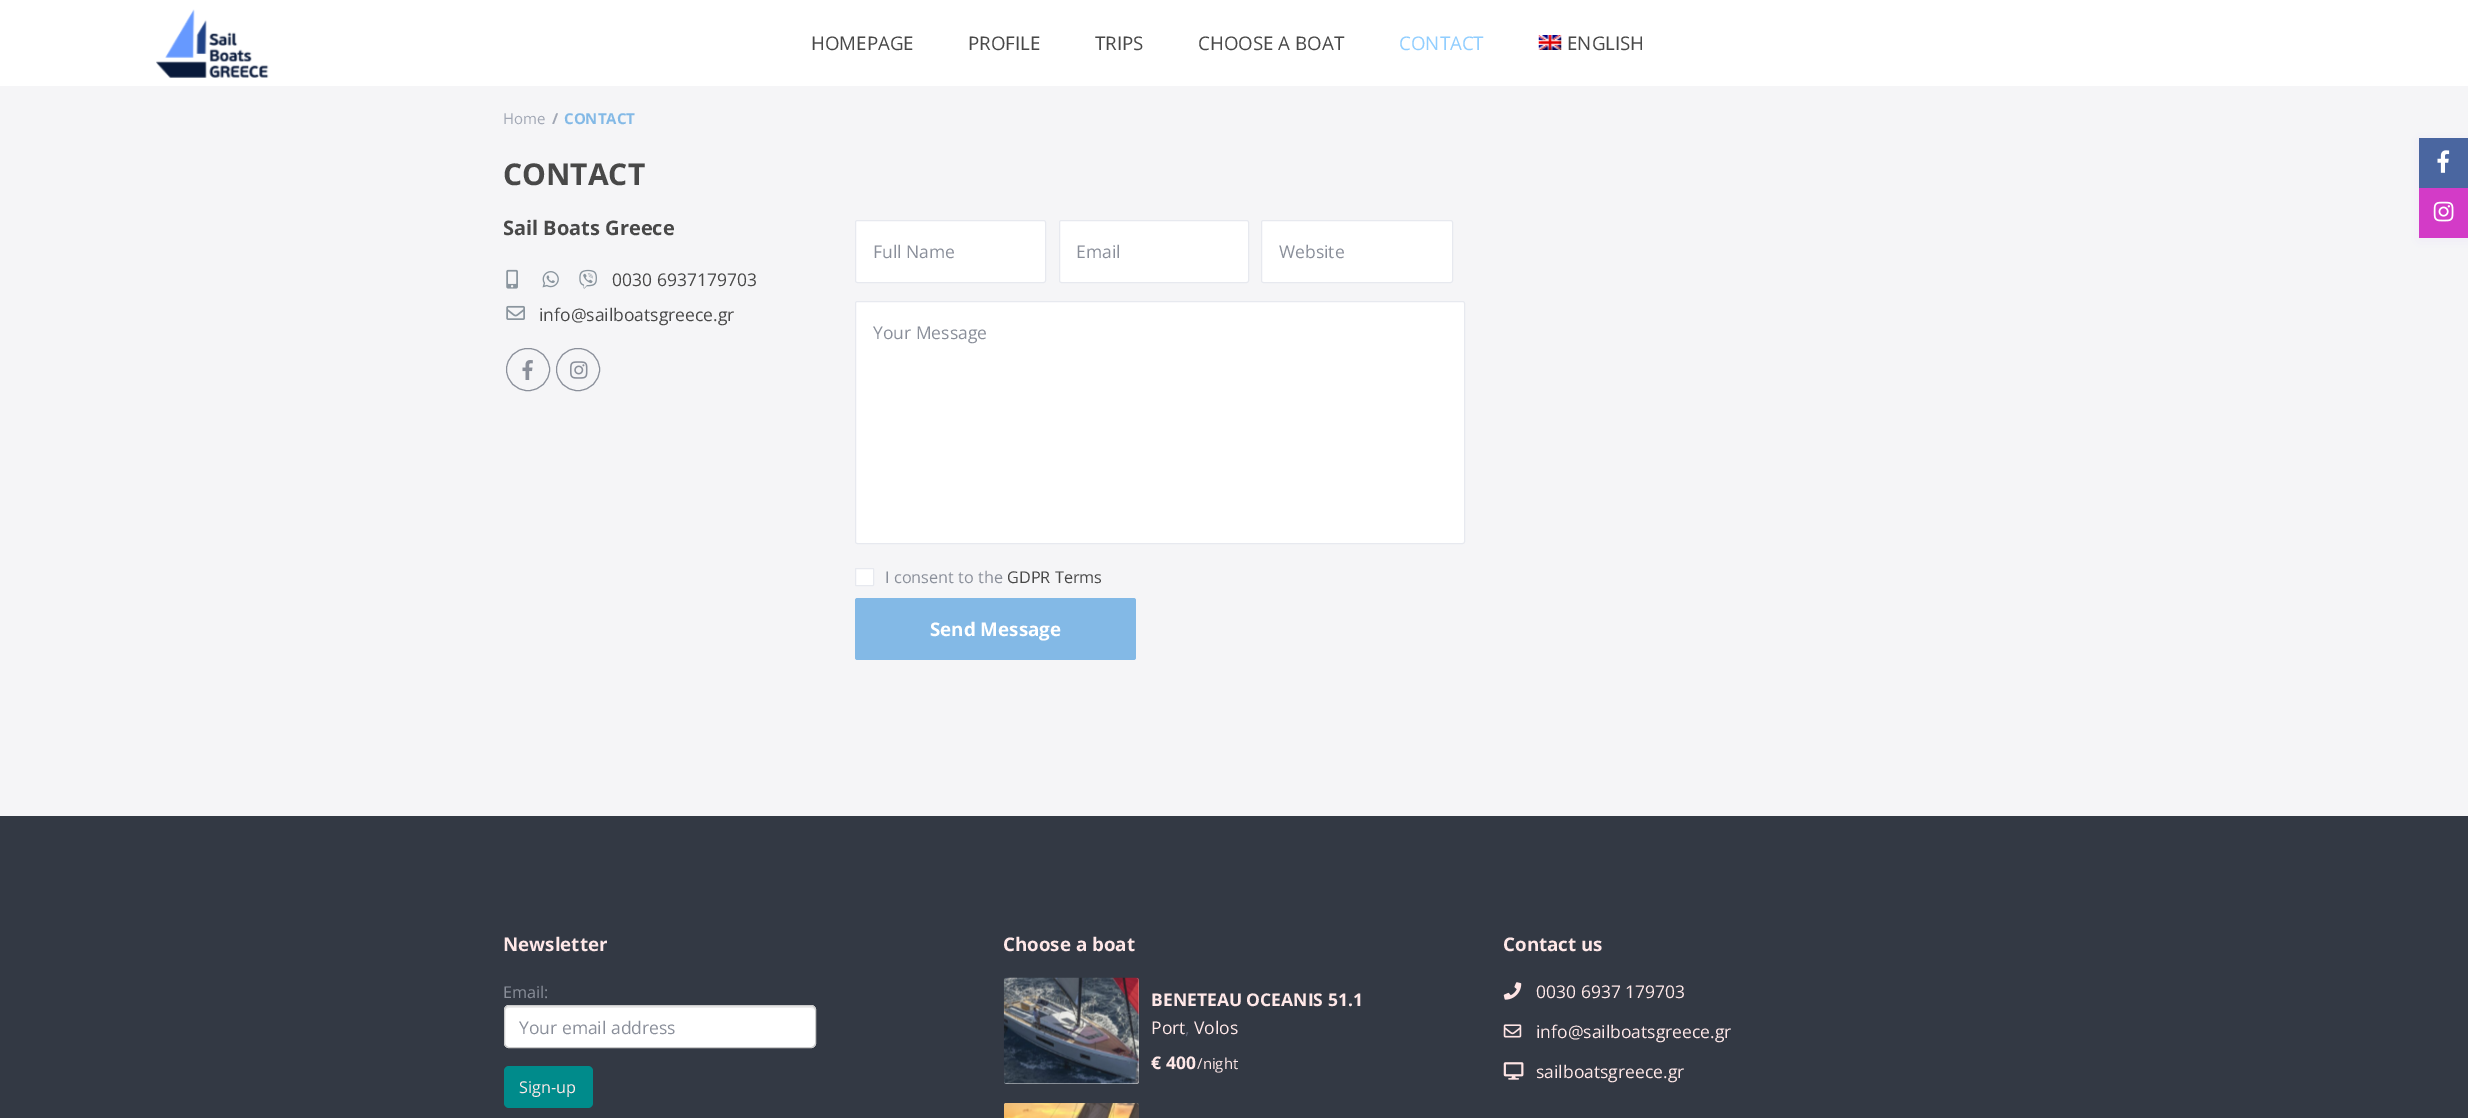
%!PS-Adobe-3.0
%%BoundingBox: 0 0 2468 1118
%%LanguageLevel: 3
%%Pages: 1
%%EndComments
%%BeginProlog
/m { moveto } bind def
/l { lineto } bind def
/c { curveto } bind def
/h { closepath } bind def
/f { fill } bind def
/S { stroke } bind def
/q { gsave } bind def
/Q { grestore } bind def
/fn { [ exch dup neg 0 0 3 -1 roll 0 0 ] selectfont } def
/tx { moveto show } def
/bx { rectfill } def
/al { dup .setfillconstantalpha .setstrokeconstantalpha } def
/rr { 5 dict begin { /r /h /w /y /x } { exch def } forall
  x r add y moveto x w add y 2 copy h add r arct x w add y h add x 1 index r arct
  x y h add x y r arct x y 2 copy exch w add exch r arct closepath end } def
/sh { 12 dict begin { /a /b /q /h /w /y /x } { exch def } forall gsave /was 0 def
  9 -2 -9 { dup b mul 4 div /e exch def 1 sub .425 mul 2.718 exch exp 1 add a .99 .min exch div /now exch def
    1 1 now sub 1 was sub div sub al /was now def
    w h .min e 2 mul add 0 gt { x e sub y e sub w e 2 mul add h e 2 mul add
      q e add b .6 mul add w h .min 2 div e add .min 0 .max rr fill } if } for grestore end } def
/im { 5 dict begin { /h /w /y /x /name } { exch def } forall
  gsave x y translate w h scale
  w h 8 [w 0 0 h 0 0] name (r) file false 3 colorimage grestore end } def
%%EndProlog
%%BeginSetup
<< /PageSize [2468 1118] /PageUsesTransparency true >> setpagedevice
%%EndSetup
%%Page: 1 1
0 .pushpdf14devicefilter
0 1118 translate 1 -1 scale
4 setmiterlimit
0.961 0.961 0.969 setrgbcolor
0 0 2468 1118 bx
1 setgray
0 0 2468 86 bx
(image0.raw) 156 9 113 69 im
/OpenSans-Regular 18.75 fn
0.282 setgray
(HOMEPAGE) 811 50 tx
(PROFILE) 968 50 tx
(TRIPS) 1095 50 tx
(CHOOSE A BOAT) 1198 50 tx
0.569 0.808 1 setrgbcolor
(CONTACT) 1399 50 tx
(image1.raw) 1538 35 24 15 im
0.282 setgray
(ENGLISH) 1567 50 tx
/OpenSans-Regular 15 fn
0.631 0.655 0.706 setrgbcolor
(Home) 503 124 tx
/OpenSans-Bold 15 fn
(/) 552 124 tx
0.514 0.725 0.902 setrgbcolor
(CONTACT) 564 124 tx
/OpenSans-Bold 30 fn
0.282 setgray
(CONTACT) 503 185 tx
/OpenSans-Bold 20 fn
(Sail Boats Greece) 503 235 tx
(image2.raw) 506 269 12 20 im
(image3.raw) 542 271 17 17 im
(image4.raw) 579 269 18 20 im
/OpenSans-Regular 17.5 fn
(0030 6937179703) 612 286 tx
(image5.raw) 506 305 19 15 im
(info@sailboatsgreece.gr) 539 321 tx
0.541 0.561 0.604 setrgbcolor
506.5 348.5 43 42 21 rr S
(image6.raw) 522 360 11 20 im
556.5 348.5 43 42 21 rr S
(image7.raw) 570 361 18 18 im
1 setgray
855.5 220.5 190 62 2 rr q f Q
0.906 0.914 0.937 setrgbcolor
S
0.541 0.561 0.604 setrgbcolor
(Full Name) 873 258 tx
1 setgray
1059.5 220.5 189 62 2 rr q f Q
0.906 0.914 0.937 setrgbcolor
S
0.541 0.561 0.604 setrgbcolor
(Email) 1076 258 tx
1 setgray
1261.5 220.5 191 62 2 rr q f Q
0.906 0.914 0.937 setrgbcolor
S
0.541 0.561 0.604 setrgbcolor
(Website) 1279 258 tx
1 setgray
855.5 301.5 609 242 2 rr q f Q
0.906 0.914 0.937 setrgbcolor
S
0.541 0.561 0.604 setrgbcolor
(Your Message) 873 339 tx
1 setgray
855.5 568.5 18 17 0.5 rr q f Q
0.906 0.914 0.937 setrgbcolor
S
/OpenSans-Regular 16.25 fn
0.541 0.561 0.604 setrgbcolor
(I consent to the) 885 583 tx
0.282 setgray
(GDPR Terms) 1007 583 tx
0.514 0.725 0.902 setrgbcolor
855 598 281 62 2.5 rr f
/OpenSans-Bold 18.75 fn
1 setgray
(Send Message) 930 636 tx
0.2 0.224 0.267 setrgbcolor
0 816 2468 302 bx
1 0.91 0.91 setrgbcolor
(Newsletter) 503 951 tx
/OpenSans-Regular 16.25 fn
0.541 0.561 0.604 setrgbcolor
(Email:) 503 998 tx
1 setgray
504 1005 312 43 5 rr f
0.925 setgray
509 1008 m 811 1008 l 813 1008 815 1009 815 1011 c 815 1008 814 1006 811 1006 c 509 1006 l 506 1007 l 505 1008 505 1010 505 1011 c 505 1009 507 1008 509 1008 c h f
0.8 setgray
504.5 1005.5 311 42 4.5 rr S
/OpenSans-Regular 17.5 fn
0.541 0.561 0.604 setrgbcolor
(Your email address) 519 1034 tx
0 0.545 0.545 setrgbcolor
504 1066 89 42 5 rr f
/OpenSans-Regular 16.25 fn
1 0.91 0.91 setrgbcolor
(Sign-up) 519 1093 tx
/OpenSans-Bold 18.75 fn
(Choose a boat) 1003 951 tx
0.969 setgray
1004 978 135 106 2.5 rr f
(image8.raw) 1003 977 136 107 im
/OpenSans-Bold 17.5 fn
1 0.91 0.91 setrgbcolor
(BENETEAU OCEANIS 51.1) 1151 1006 tx
/OpenSans-Regular 17.5 fn
(Port) 1151 1034 tx
0.365 0.392 0.459 setrgbcolor
(,) 1185 1034 tx
1 0.91 0.91 setrgbcolor
(Volos) 1194 1034 tx
/OpenSans-Bold 17.5 fn
(€ 400) 1151 1069 tx
/OpenSans-Regular 15 fn
(/night) 1197 1069 tx
(image9.raw) 1004 1103 135 15 im
/OpenSans-Bold 18.75 fn
(Contact us) 1503 951 tx
(image10.raw) 1503 982 19 18 im
/OpenSans-Regular 17.5 fn
(0030 6937 179703) 1536 998 tx
(image11.raw) 1503 1024 19 14 im
(info@sailboatsgreece.gr) 1536 1038 tx
(image12.raw) 1503 1062 21 18 im
(sailboatsgreece.gr) 1536 1078 tx
0.71 0.498 0.98 setrgbcolor
2419 140 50 100 0 7 0.1 sh
0.29 0.4 0.627 setrgbcolor
2419 138 49 50 bx
(image13.raw) 2437 150 13 23 im
0.827 0.231 0.78 setrgbcolor
2419 188 49 50 bx
(image14.raw) 2433 201 21 21 im
.poppdf14devicefilter showpage
%%EOF
